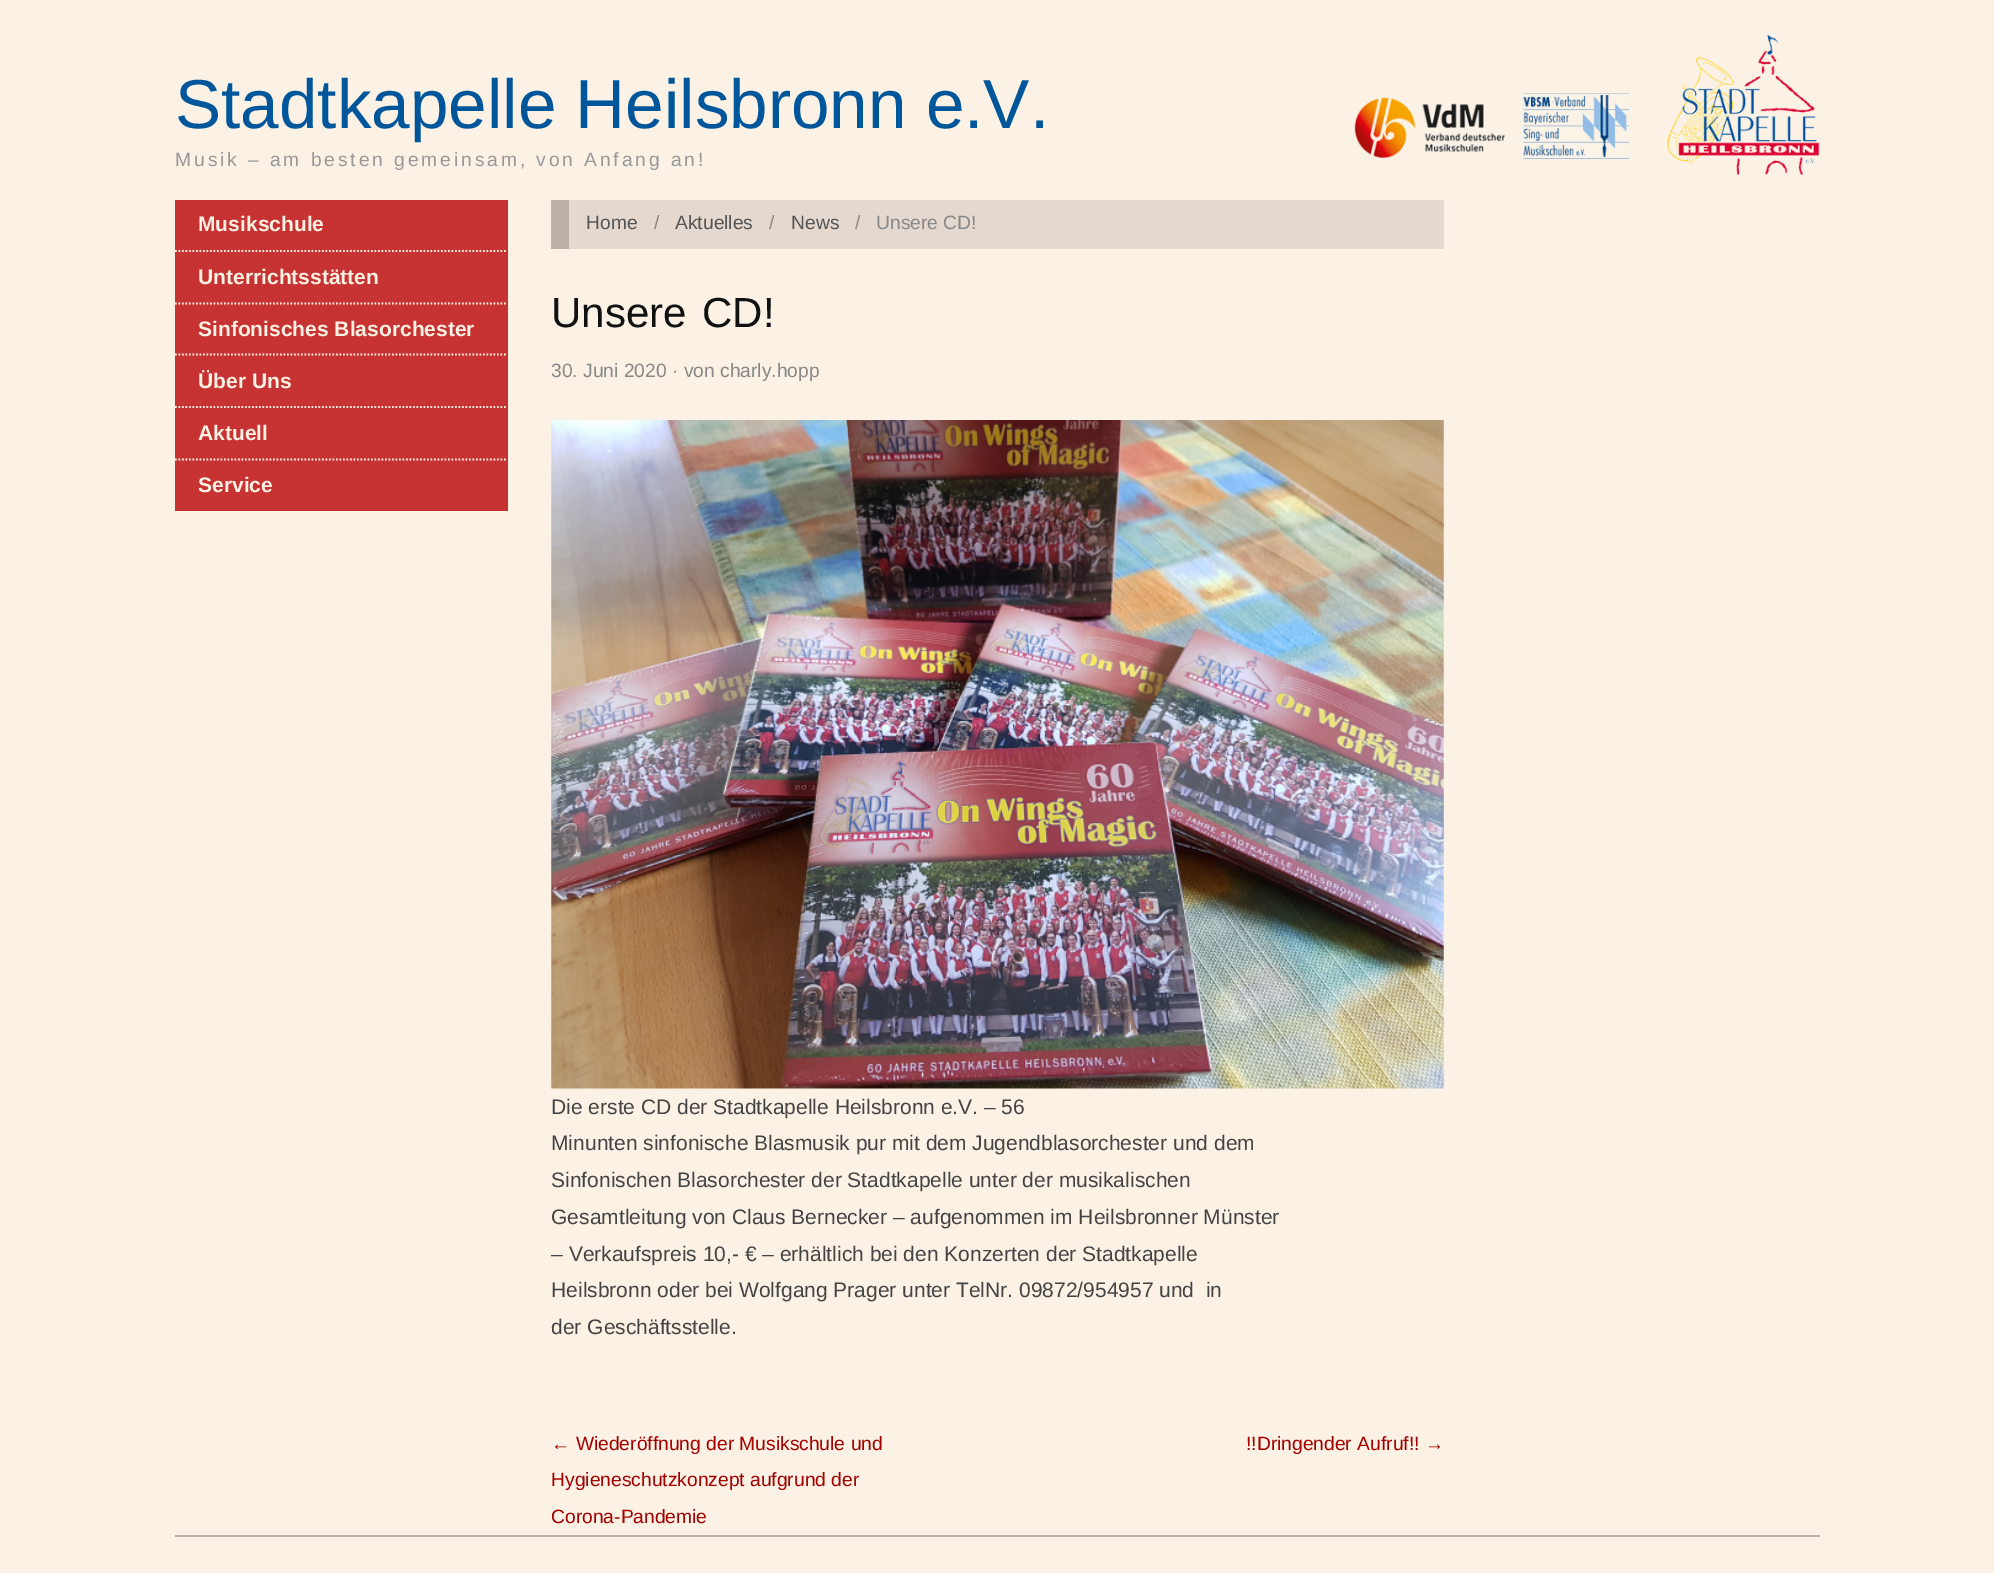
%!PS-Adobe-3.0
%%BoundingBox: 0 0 1994 1573
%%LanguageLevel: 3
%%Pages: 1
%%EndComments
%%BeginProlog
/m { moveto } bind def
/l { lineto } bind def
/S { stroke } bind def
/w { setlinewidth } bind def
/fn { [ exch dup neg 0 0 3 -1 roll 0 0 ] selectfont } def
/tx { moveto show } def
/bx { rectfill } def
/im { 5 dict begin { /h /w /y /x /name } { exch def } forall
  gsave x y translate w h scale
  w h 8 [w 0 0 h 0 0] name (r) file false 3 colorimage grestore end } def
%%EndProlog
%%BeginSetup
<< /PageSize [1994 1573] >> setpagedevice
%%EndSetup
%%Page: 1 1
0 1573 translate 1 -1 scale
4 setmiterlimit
0.984 0.949 0.898 setrgbcolor
0 0 1994 1573 bx
/LiberationSans-Regular 69.25 fn
0 0.337 0.604 setrgbcolor
(Stadtkapelle Heilsbronn e.V.) 175 128 tx
/LiberationSans-Regular 19.25 fn
0.6 setgray
175 166 m 2.9 0 (Musik – am besten gemeinsam, von Anfang an!) ashow
(image0.raw) 1354 93 276 66 im
(image1.raw) 1666 35 154 140 im
0.78 0.2 0.2 setrgbcolor
175 200 333 311 bx
0.988 0.949 0.894 setrgbcolor
1.8 w
[1.75 1.75] 0 setdash
175 251 m 507.5 251 l S
/LiberationSans-Bold 21 fn
(Musikschule) 198 231 tx
175 303.5 m 507.5 303.5 l S
(Unterrichtsstätten) 198 284 tx
175 354.5 m 507.5 354.5 l S
(Sinfonisches Blasorchester) 198 336 tx
175 407 m 507.5 407 l S
(Über Uns) 198 388 tx
175 459.5 m 507.5 459.5 l S
(Aktuell) 198 440 tx
(Service) 198 492 tx
0.898 0.847 0.808 setrgbcolor
569 200 875 49 bx
0.741 0.698 0.667 setrgbcolor
551 200 18 49 bx
/LiberationSans-Regular 19.25 fn
0.333 setgray
(Home) 586 229 tx
0.533 setgray
(/) 654 229 tx
0.333 setgray
(Aktuelles) 675 229 tx
0.533 setgray
(/) 769 229 tx
0.333 setgray
(News) 791 229 tx
0.533 setgray
(/) 855 229 tx
(Unsere CD!) 876 229 tx
/LiberationSans-Regular 42 fn
0.067 setgray
551 327 m 4 0 32 (Unsere CD!) widthshow
/LiberationSans-Regular 19.25 fn
0.533 setgray
(30. Juni 2020 · von charly.hopp) 551 377 tx
(image2.raw) 551 420 893 669 im
/LiberationSans-Regular 21 fn
0.267 setgray
(Die erste CD der Stadtkapelle Heilsbronn e.V. – 56) 551 1114 tx
(Minunten sinfonische Blasmusik pur mit dem Jugendblasorchester und dem) 551 1150 tx
(Sinfonischen Blasorchester der Stadtkapelle unter der musikalischen) 551 1187 tx
(Gesamtleitung von Claus Bernecker – aufgenommen im Heilsbronner Münster) 551 1224 tx
(– Verkaufspreis 10,- € – erhältlich bei den Konzerten der Stadtkapelle) 551 1261 tx
(Heilsbronn oder bei Wolfgang Prager unter TelNr. 09872/954957 und  in) 551 1297 tx
(der Geschäftsstelle.) 551 1334 tx
/LiberationSans-Regular 19.25 fn
0.643 0 0 setrgbcolor
(← Wiederöffnung der Musikschule und) 551 1450 tx
(Hygieneschutzkonzept aufgrund der) 551 1486 tx
(Corona-Pandemie) 551 1523 tx
(!!Dringender Aufruf!! →) 1246 1450 tx
0.741 0.698 0.667 setrgbcolor
175 1535 1645 2 bx
showpage
%%EOF
